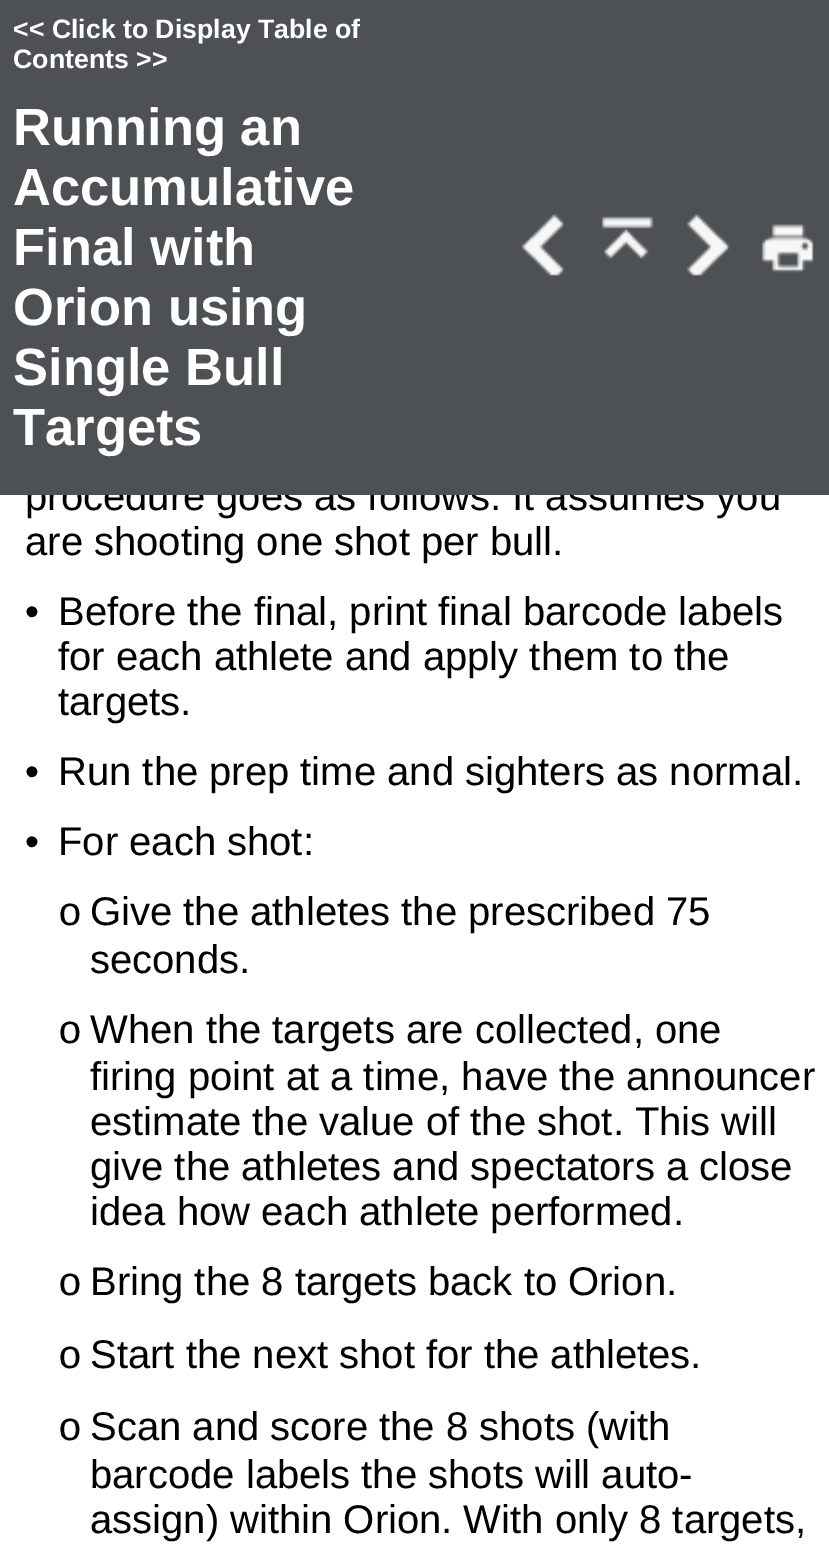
%!PS-Adobe-3.0
%%BoundingBox: 0 0 829 1547
%%LanguageLevel: 3
%%Pages: 1
%%EndComments
%%BeginProlog
/fn { [ exch dup neg 0 0 3 -1 roll 0 0 ] selectfont } def
/tx { moveto show } def
/bx { rectfill } def
/im { 5 dict begin { /h /w /y /x /name } { exch def } forall
  gsave x y translate w h scale
  w h 8 [w 0 0 h 0 0] name (r) file false 3 colorimage grestore end } def
%%EndProlog
%%BeginSetup
<< /PageSize [829 1547] >> setpagedevice
%%EndSetup
%%Page: 1 1
0 1547 translate 1 -1 scale
4 setmiterlimit
1 setgray
0 0 829 1547 bx
/LiberationSans-Regular 40 fn
0 setgray
(procedure goes as follows. It assumes you) 25 510 tx
0.306 0.318 0.329 setrgbcolor
0 0 829 495 bx
/LiberationSans-Bold 26.7 fn
1 setgray
(<< Click to Display Table of) 13 38 tx
(Contents >>) 13 68 tx
/LiberationSans-Bold 52.5 fn
(Running an) 13 145 tx
(Accumulative) 13 205 tx
(Final with) 13 265 tx
(Orion using) 13 325 tx
(Single Bull) 13 385 tx
(Targets) 13 445 tx
(image0.raw) 521 214 44 62 im
(image1.raw) 601 216 53 43 im
(image2.raw) 686 214 45 62 im
(image3.raw) 761 224 53 49 im
/LiberationSans-Regular 40 fn
0 setgray
(are shooting one shot per bull.) 25 555 tx
(•) 25 625 tx
(Before the final, print final barcode labels) 58 625 tx
(for each athlete and apply them to the) 58 670 tx
(targets.) 58 715 tx
(•) 25 785 tx
(Run the prep time and sighters as normal.) 58 785 tx
(•) 25 855 tx
(For each shot:) 58 855 tx
/LiberationMono-Regular 40 fn
(o) 58 925 tx
/LiberationSans-Regular 40 fn
(Give the athletes the prescribed 75) 90 925 tx
(seconds.) 90 973 tx
/LiberationMono-Regular 40 fn
(o) 58 1043 tx
/LiberationSans-Regular 40 fn
(When the targets are collected, one) 90 1043 tx
(firing point at a time, have the announcer) 90 1090 tx
(estimate the value of the shot. This will) 90 1135 tx
(give the athletes and spectators a close) 90 1180 tx
(idea how each athlete performed.) 90 1225 tx
/LiberationMono-Regular 40 fn
(o) 58 1295 tx
/LiberationSans-Regular 40 fn
(Bring the 8 targets back to Orion.) 90 1295 tx
/LiberationMono-Regular 40 fn
(o) 58 1368 tx
/LiberationSans-Regular 40 fn
(Start the next shot for the athletes.) 90 1368 tx
/LiberationMono-Regular 40 fn
(o) 58 1440 tx
/LiberationSans-Regular 40 fn
(Scan and score the 8 shots \(with) 90 1440 tx
(barcode labels the shots will auto-) 90 1488 tx
(assign\) within Orion. With only 8 targets,) 90 1533 tx
showpage
%%EOF
